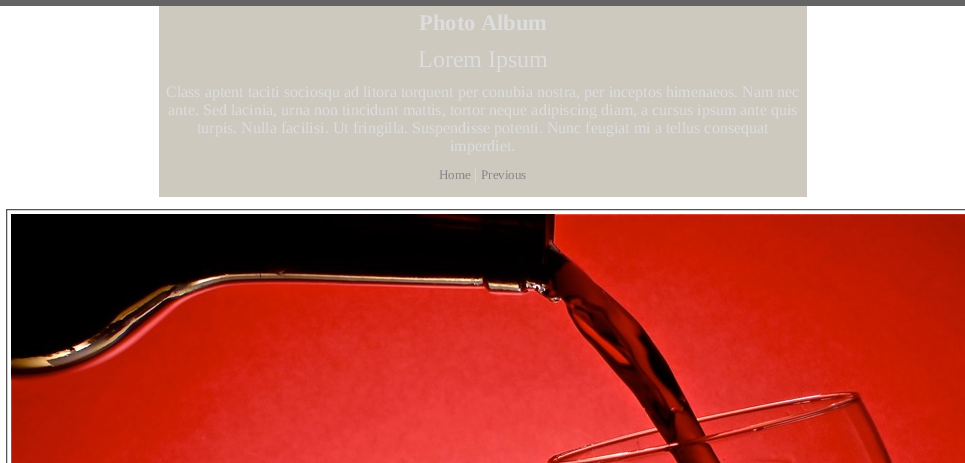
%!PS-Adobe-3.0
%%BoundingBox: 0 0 965 463
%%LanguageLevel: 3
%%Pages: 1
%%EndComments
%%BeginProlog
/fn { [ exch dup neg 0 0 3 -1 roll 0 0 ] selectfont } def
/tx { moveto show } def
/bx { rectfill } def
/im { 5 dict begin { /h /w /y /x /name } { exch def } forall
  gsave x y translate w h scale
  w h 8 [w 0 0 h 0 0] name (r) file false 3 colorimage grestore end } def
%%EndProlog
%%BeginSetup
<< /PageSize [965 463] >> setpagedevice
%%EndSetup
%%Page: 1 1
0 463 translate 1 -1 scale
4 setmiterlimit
0.392 setgray
0 0 965 463 bx
1 setgray
0 6 965 457 bx
0.804 0.788 0.749 setrgbcolor
159 6 648 191 bx
/LiberationSerif-Bold 22.5 fn
0.867 setgray
(Photo Album) 419 30 tx
/LiberationSerif-Regular 24 fn
(Lorem Ipsum) 418 67 tx
/LiberationSerif-Regular 16 fn
(Class aptent taciti sociosqu ad litora torquent per conubia nostra, per inceptos himenaeos. Nam nec) 166 97 tx
(ante. Sed lacinia, urna non tincidunt mattis, tortor neque adipiscing diam, a cursus ipsum ante quis) 168 115 tx
(turpis. Nulla facilisi. Ut fringilla. Suspendisse potenti. Nunc feugiat mi a tellus consequat) 197 133 tx
(imperdiet.) 450 151 tx
/LiberationSerif-Regular 13 fn
0.533 setgray
(Home) 439 179 tx
/LiberationSerif-Regular 16 fn
0.867 setgray
(|) 474 179 tx
/LiberationSerif-Regular 13 fn
0.533 setgray
(Previous) 481 179 tx
0.333 setgray
6.5 209.5 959 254 rectstroke
(image0.raw) 11 214 954 249 im
showpage
%%EOF
